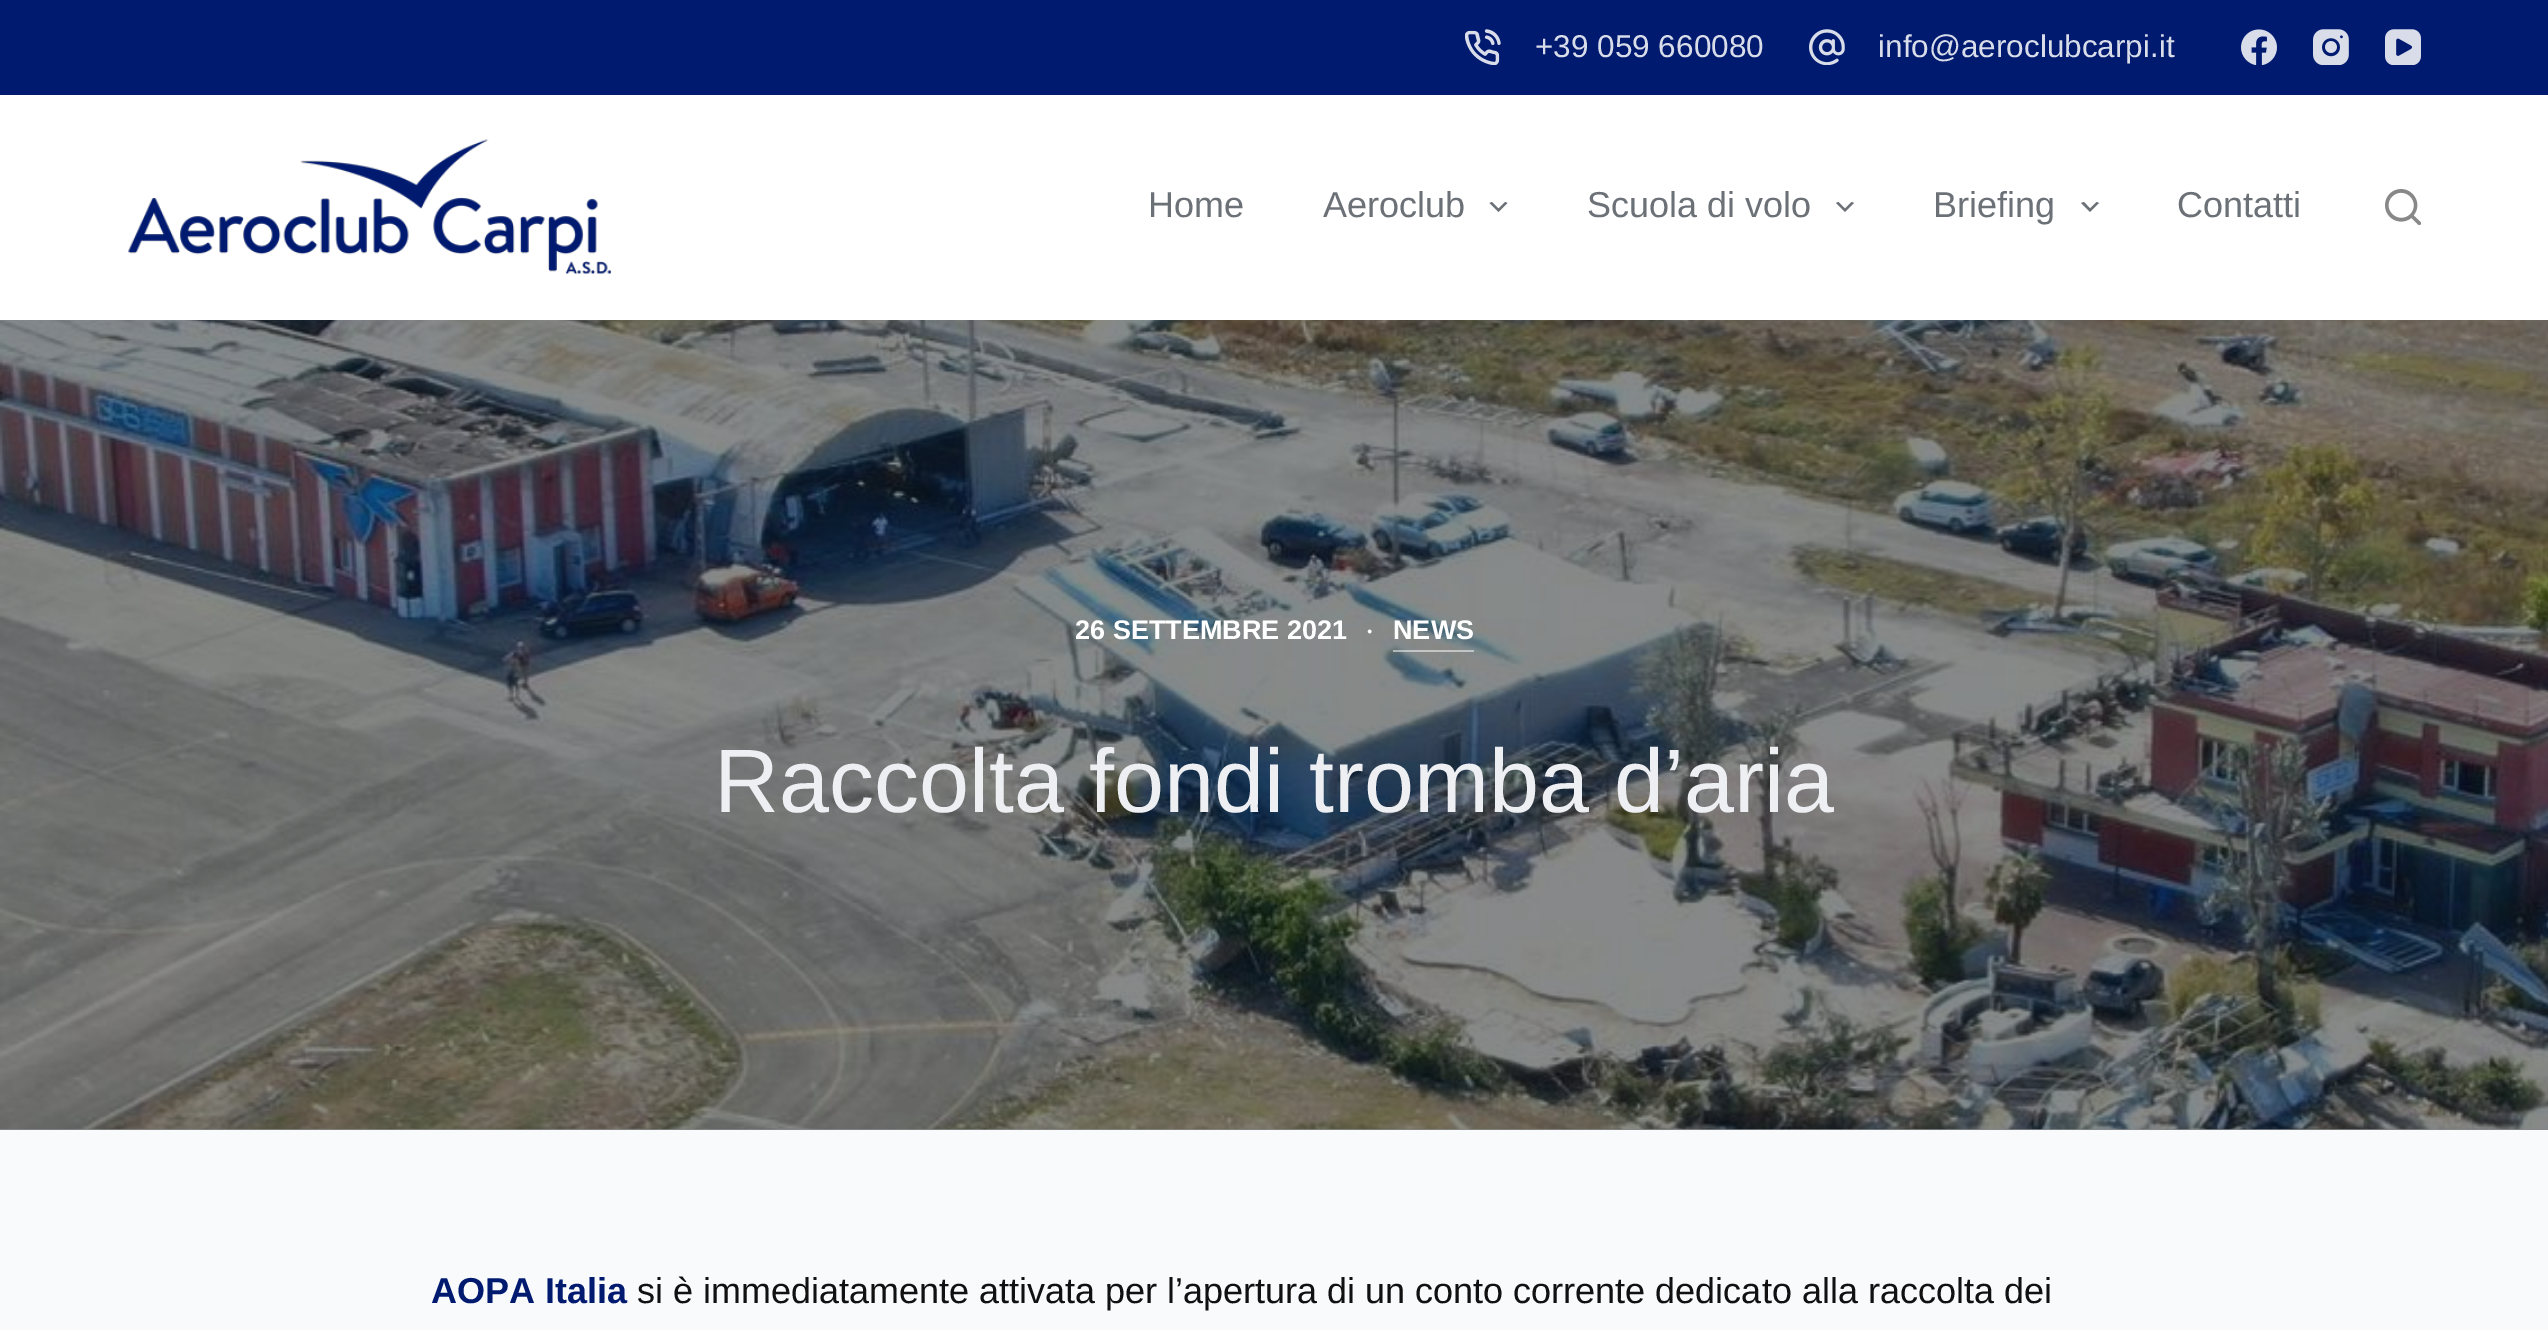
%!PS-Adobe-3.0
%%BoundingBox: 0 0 2548 1330
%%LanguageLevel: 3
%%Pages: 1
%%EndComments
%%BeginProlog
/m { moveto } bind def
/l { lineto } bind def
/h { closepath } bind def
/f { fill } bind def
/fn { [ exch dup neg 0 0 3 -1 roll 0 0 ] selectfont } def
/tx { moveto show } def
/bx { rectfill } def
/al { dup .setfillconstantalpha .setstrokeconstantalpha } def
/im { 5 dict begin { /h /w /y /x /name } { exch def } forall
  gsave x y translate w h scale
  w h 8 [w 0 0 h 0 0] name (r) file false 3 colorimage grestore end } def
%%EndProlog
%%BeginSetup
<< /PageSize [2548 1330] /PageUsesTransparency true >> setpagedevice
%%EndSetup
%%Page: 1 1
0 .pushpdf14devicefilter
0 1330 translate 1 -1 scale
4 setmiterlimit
0.976 0.98 0.988 setrgbcolor
0 0 2548 1330 bx
0.522 0.529 0.541 setrgbcolor
0 1129 2548 1 bx
0 0.102 0.439 setrgbcolor
0 0 2548 95 bx
(image0.raw) 1465 29 36 36 im
/LiberationSans-Regular 31.5 fn
0.851 0.867 0.918 setrgbcolor
(+39 059 660080) 1535 57 tx
(image1.raw) 1809 29 36 36 im
(info@aeroclubcarpi.it) 1878 57 tx
(image2.raw) 2241 29 36 36 im
(image3.raw) 2313 29 36 36 im
(image4.raw) 2385 29 36 36 im
1 setgray
0 95 2548 225 bx
(image5.raw) 128 139 484 135 im
/LiberationSans-Regular 36 fn
0.42 0.443 0.463 setrgbcolor
(Home) 1148 217 tx
(Aeroclub) 1323 217 tx
1492 202 m 1498.5 208.5 l 1505 202 l 1507.5 203 l 1498.5 212 l 1489.5 203 l h f
(Scuola di volo) 1587 217 tx
1838.5 202 m 1845 208.5 l 1851.5 202 l 1854 203 l 1845 212 l 1836 203 l h f
(Briefing) 1933 217 tx
2084 202 m 2090 208.5 l 2096.5 202 l 2099 203 l 2090 212 l 2081 203 l h f
(Contatti) 2177 217 tx
(image6.raw) 2385 189 36 36 im
(image7.raw) 0 320 2548 810 im
/LiberationSans-Bold 27 fn
1 setgray
(26 SETTEMBRE 2021) 1075 639 tx
/LiberationSans-Bold 9 fn
(●) 1367 634 tx
/LiberationSans-Bold 27 fn
(NEWS) 1393 639 tx
0.5 al
1393 650 81 2 bx
/LiberationSans-Regular 90 fn
1 al
0.929 0.937 0.949 setrgbcolor
(Raccolta fondi tromba d’aria) 714 812 tx
/LiberationSans-Bold 36 fn
0 0.102 0.439 setrgbcolor
(AOPA Italia) 431 1303 tx
/LiberationSans-Regular 36 fn
0.067 setgray
(si è immediatamente attivata per l’apertura di un conto corrente dedicato alla raccolta dei) 637 1303 tx
.poppdf14devicefilter showpage
%%EOF
